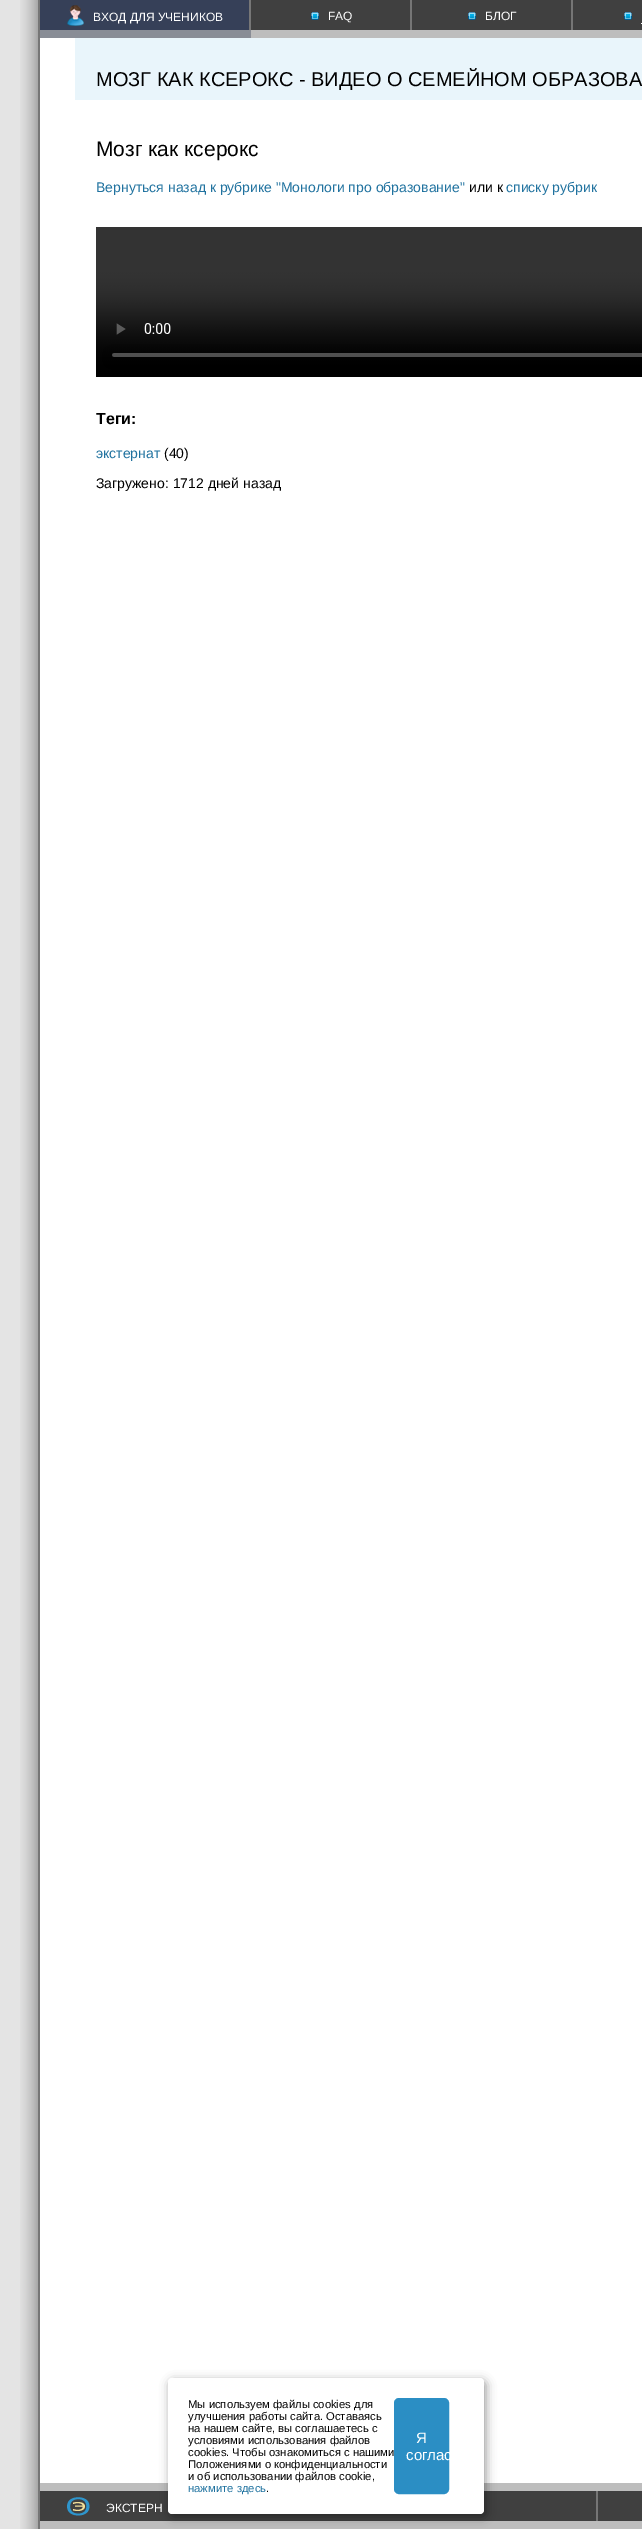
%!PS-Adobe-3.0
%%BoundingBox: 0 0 642 2529
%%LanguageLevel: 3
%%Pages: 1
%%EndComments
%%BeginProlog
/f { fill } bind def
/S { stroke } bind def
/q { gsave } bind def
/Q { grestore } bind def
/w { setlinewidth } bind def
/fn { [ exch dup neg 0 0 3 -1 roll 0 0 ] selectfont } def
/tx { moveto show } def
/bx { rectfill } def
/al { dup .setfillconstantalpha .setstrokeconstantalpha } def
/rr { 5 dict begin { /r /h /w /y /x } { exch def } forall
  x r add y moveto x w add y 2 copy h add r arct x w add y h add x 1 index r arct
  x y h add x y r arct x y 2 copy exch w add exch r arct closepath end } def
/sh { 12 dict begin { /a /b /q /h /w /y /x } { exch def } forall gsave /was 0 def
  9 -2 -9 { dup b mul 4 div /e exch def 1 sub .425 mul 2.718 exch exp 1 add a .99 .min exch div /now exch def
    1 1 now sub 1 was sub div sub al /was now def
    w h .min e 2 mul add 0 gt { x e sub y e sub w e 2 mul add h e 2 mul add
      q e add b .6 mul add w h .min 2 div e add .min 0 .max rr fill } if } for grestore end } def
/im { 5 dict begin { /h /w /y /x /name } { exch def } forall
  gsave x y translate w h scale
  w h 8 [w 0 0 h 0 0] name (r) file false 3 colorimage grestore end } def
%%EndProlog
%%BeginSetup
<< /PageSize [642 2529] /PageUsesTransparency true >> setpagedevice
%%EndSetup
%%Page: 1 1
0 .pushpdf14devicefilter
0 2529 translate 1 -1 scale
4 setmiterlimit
0.894 setgray
0 0 642 2529 bx
(image0.raw) 20 0 20 2529 im
(image1.raw) 251 0 391 38 im
(image2.raw) 40 0 211 38 im
(image3.raw) 67 5 17 21 im
/LiberationSans-Regular 12 fn
1 setgray
(ВХОД ДЛЯ УЧЕНИКОВ) 93 21 tx
0.463 setgray
410 0 2 30 bx
(image4.raw) 311 12 8 8 im
1 setgray
(FAQ) 328 20 tx
0.463 setgray
571 0 2 30 bx
(image4.raw) 468 12 8 8 im
1 setgray
(БЛОГ) 485 20 tx
(image4.raw) 624 12 8 8 im
641 23 1 1 bx
40 38 602 2445 bx
0.914 0.961 0.984 setrgbcolor
75 38 567 62 bx
/LiberationSans-Regular 20 fn
0 setgray
(МОЗГ КАК КСЕРОКС - ВИДЕО О СЕМЕЙНОМ ОБРАЗОВА) 96 86 tx
/LiberationSans-Regular 21 fn
(Мозг как ксерокс) 96 156 tx
/LiberationSans-Regular 14 fn
0.125 0.447 0.624 setrgbcolor
(Вернуться назад к рубрике "Монологи про образование") 96 192 tx
0 setgray
(или к) 469 192 tx
0.125 0.447 0.624 setrgbcolor
(списку рубрик) 506 192 tx
(image5.raw) 96 227 546 150 im
/LiberationSans-Bold 16 fn
0 setgray
(Теги:) 96 424 tx
/LiberationSans-Regular 14 fn
0.125 0.447 0.624 setrgbcolor
(экстернат) 96 458 tx
0 setgray
(\(40\)) 164 458 tx
(Загружено: 1712 дней назад) 96 488 tx
(image6.raw) 40 2483 602 46 im
(image7.raw) 67 2497 23 19 im
/LiberationSans-Regular 12 fn
1 setgray
(ЭКСТЕРН) 106 2512 tx
0.463 setgray
596 2491 2 30 bx
0 setgray
170 2381 316 136 4 5 0.4 sh
1 setgray
168 2378 316 136 4 rr f
/LiberationSans-Regular 11.25 fn
0 setgray
(Мы используем файлы cookies для) 188 2408 tx
(улучшения работы сайта. Оставаясь) 188 2420 tx
(на нашем сайте, вы соглашаетесь с) 188 2432 tx
(условиями использования файлов) 188 2444 tx
(cookies. Чтобы ознакомиться с нашими) 188 2456 tx
(Положениями о конфиденциальности) 188 2468 tx
(и об использовании файлов cookie,) 188 2480 tx
0.125 0.447 0.624 setrgbcolor
(нажмите здесь) 188 2492 tx
0 setgray
(.) 266 2492 tx
0.169 0.557 0.769 setrgbcolor
395 2399 53 94 4 rr q f Q
2 w
S
/LiberationSans-Regular 15 fn
1 setgray
(Я) 416 2443 tx
(соглас) 406 2460 tx
.poppdf14devicefilter showpage
%%EOF
